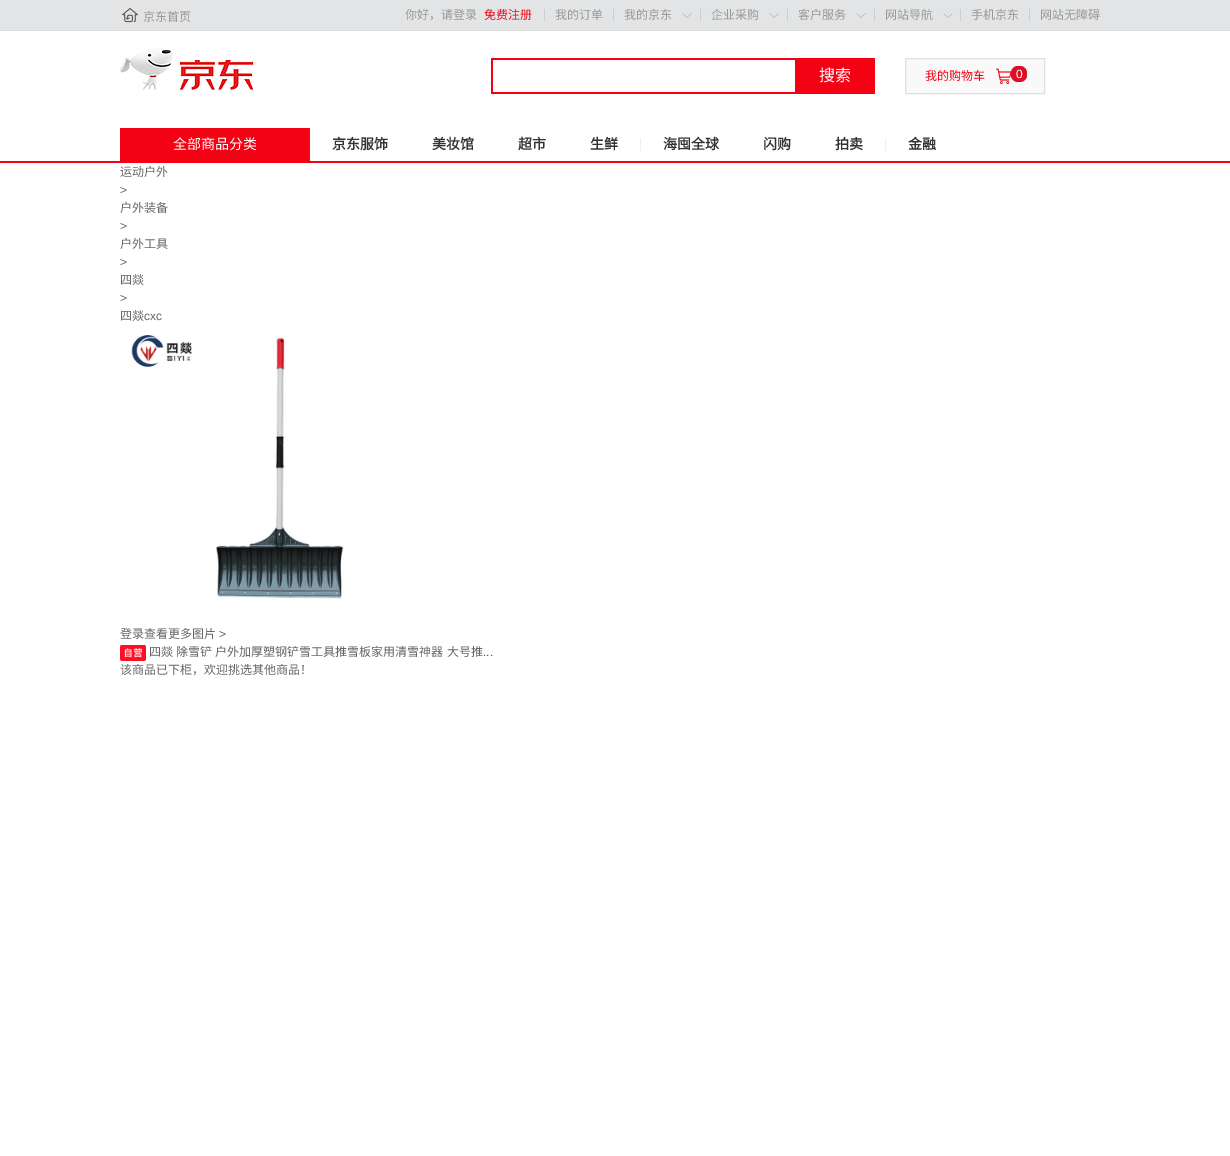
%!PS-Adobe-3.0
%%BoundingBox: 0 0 1230 1156
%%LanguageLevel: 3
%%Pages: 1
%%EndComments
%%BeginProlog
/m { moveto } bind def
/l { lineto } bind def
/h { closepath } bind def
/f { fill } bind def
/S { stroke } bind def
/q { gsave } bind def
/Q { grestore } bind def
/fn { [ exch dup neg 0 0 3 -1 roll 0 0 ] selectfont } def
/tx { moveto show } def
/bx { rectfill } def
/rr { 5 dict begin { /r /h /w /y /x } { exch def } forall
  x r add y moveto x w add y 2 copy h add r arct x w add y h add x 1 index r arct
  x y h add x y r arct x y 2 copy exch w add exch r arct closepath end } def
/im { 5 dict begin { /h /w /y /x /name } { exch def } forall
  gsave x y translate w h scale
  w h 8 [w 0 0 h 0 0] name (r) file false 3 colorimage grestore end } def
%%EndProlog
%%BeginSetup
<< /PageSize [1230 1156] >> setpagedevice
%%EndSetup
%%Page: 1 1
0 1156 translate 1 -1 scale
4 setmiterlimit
1 setgray
0 0 1230 1156 bx
0.89 0.894 0.898 setrgbcolor
0 0 1230 30 bx
0.867 setgray
0 30 1230 1 bx
(image0.raw) 122 8 16 15 im
/NotoSansCJKSC-Regular 12 fn
0.6 setgray
(京东首页) 143 21 tx
(你好，请登录) 405 19 tx
0.953 0.008 0.075 setrgbcolor
(免费注册) 484 19 tx
0.8 setgray
544 9 1 12 bx
0.6 setgray
(我的订单) 555 19 tx
0.8 setgray
613 9 1 12 bx
0.6 setgray
(我的京东) 624 19 tx
(image1.raw) 682 13 10 5 im
0.8 setgray
700 9 1 12 bx
0.6 setgray
(企业采购) 711 19 tx
(image1.raw) 769 13 10 5 im
0.8 setgray
787 9 1 12 bx
0.6 setgray
(客户服务) 798 19 tx
(image1.raw) 856 13 10 5 im
0.8 setgray
874 9 1 12 bx
0.6 setgray
(网站导航) 885 19 tx
(image1.raw) 943 13 10 5 im
0.8 setgray
960 9 1 12 bx
0.6 setgray
(手机京东) 971 19 tx
0.8 setgray
1029 9 1 12 bx
0.6 setgray
(网站无障碍) 1040 19 tx
(image2.raw) 120 48 134 42 im
0.953 0.008 0.075 setrgbcolor
491 58 304 2 bx
491 92 304 2 bx
491 58 2 36 bx
795 58 80 36 bx
/NotoSansCJKSC-Regular 16 fn
1 setgray
(搜索) 819 81 tx
0.976 setgray
905.5 58.5 m 1044.5 58.5 l 1044.5 93.5 l 905.5 93.5 l h q f Q
0.875 setgray
S
/NotoSansCJKSC-Regular 12 fn
0.953 0.008 0.075 setrgbcolor
(我的购物车) 925 80 tx
(image3.raw) 996 68 16 16 im
0.855 0.063 0.149 setrgbcolor
1011 66 16 16 7 rr f
/LiberationSans-Regular 12 fn
1 setgray
1016 78 m -1 0 (0) ashow
0.953 0.008 0.075 setrgbcolor
0 161 1230 2 bx
120 128 190 33 bx
/NotoSansCJKSC-Regular 14 fn
1 setgray
(全部商品分类) 173 149 tx
/NotoSansCJKSC-Bold 14 fn
0.2 setgray
(京东服饰) 332 149 tx
(美妆馆) 432 149 tx
(超市) 518 149 tx
(生鲜) 590 149 tx
0.933 setgray
640 138 1 13 bx
0.2 setgray
(海囤全球) 663 149 tx
(闪购) 763 149 tx
(拍卖) 835 149 tx
0.933 setgray
885 138 1 13 bx
0.2 setgray
(金融) 908 149 tx
/NotoSansCJKSC-Regular 12 fn
0.4 setgray
(运动户外) 120 176 tx
/LiberationSans-Regular 12 fn
(>) 120 194 tx
/NotoSansCJKSC-Regular 12 fn
(户外装备) 120 212 tx
/LiberationSans-Regular 12 fn
(>) 120 230 tx
/NotoSansCJKSC-Regular 12 fn
(户外工具) 120 248 tx
/LiberationSans-Regular 12 fn
(>) 120 266 tx
/NotoSansCJKSC-Regular 12 fn
(四燚) 120 284 tx
/LiberationSans-Regular 12 fn
(>) 120 302 tx
/NotoSansCJKSC-Regular 12 fn
(四燚) 120 320 tx
/LiberationSans-Regular 12 fn
(cxc) 144 320 tx
(image4.raw) 131 335 213 264 im
/NotoSansCJKSC-Regular 12 fn
(登录查看更多图片) 120 638 tx
/LiberationSans-Regular 12 fn
(>) 219 638 tx
(image5.raw) 120 645 26 16 im
/NotoSansCJKSC-Regular 12 fn
149 656 m 0.5 0 32 (四燚 除雪铲 户外加厚塑钢铲雪工具推雪板家用清雪神器 大号推) widthshow
/LiberationSans-Regular 12 fn
(...) 483 656 tx
/NotoSansCJKSC-Regular 12 fn
(该商品已下柜，欢迎挑选其他商品！) 120 674 tx
showpage
%%EOF
